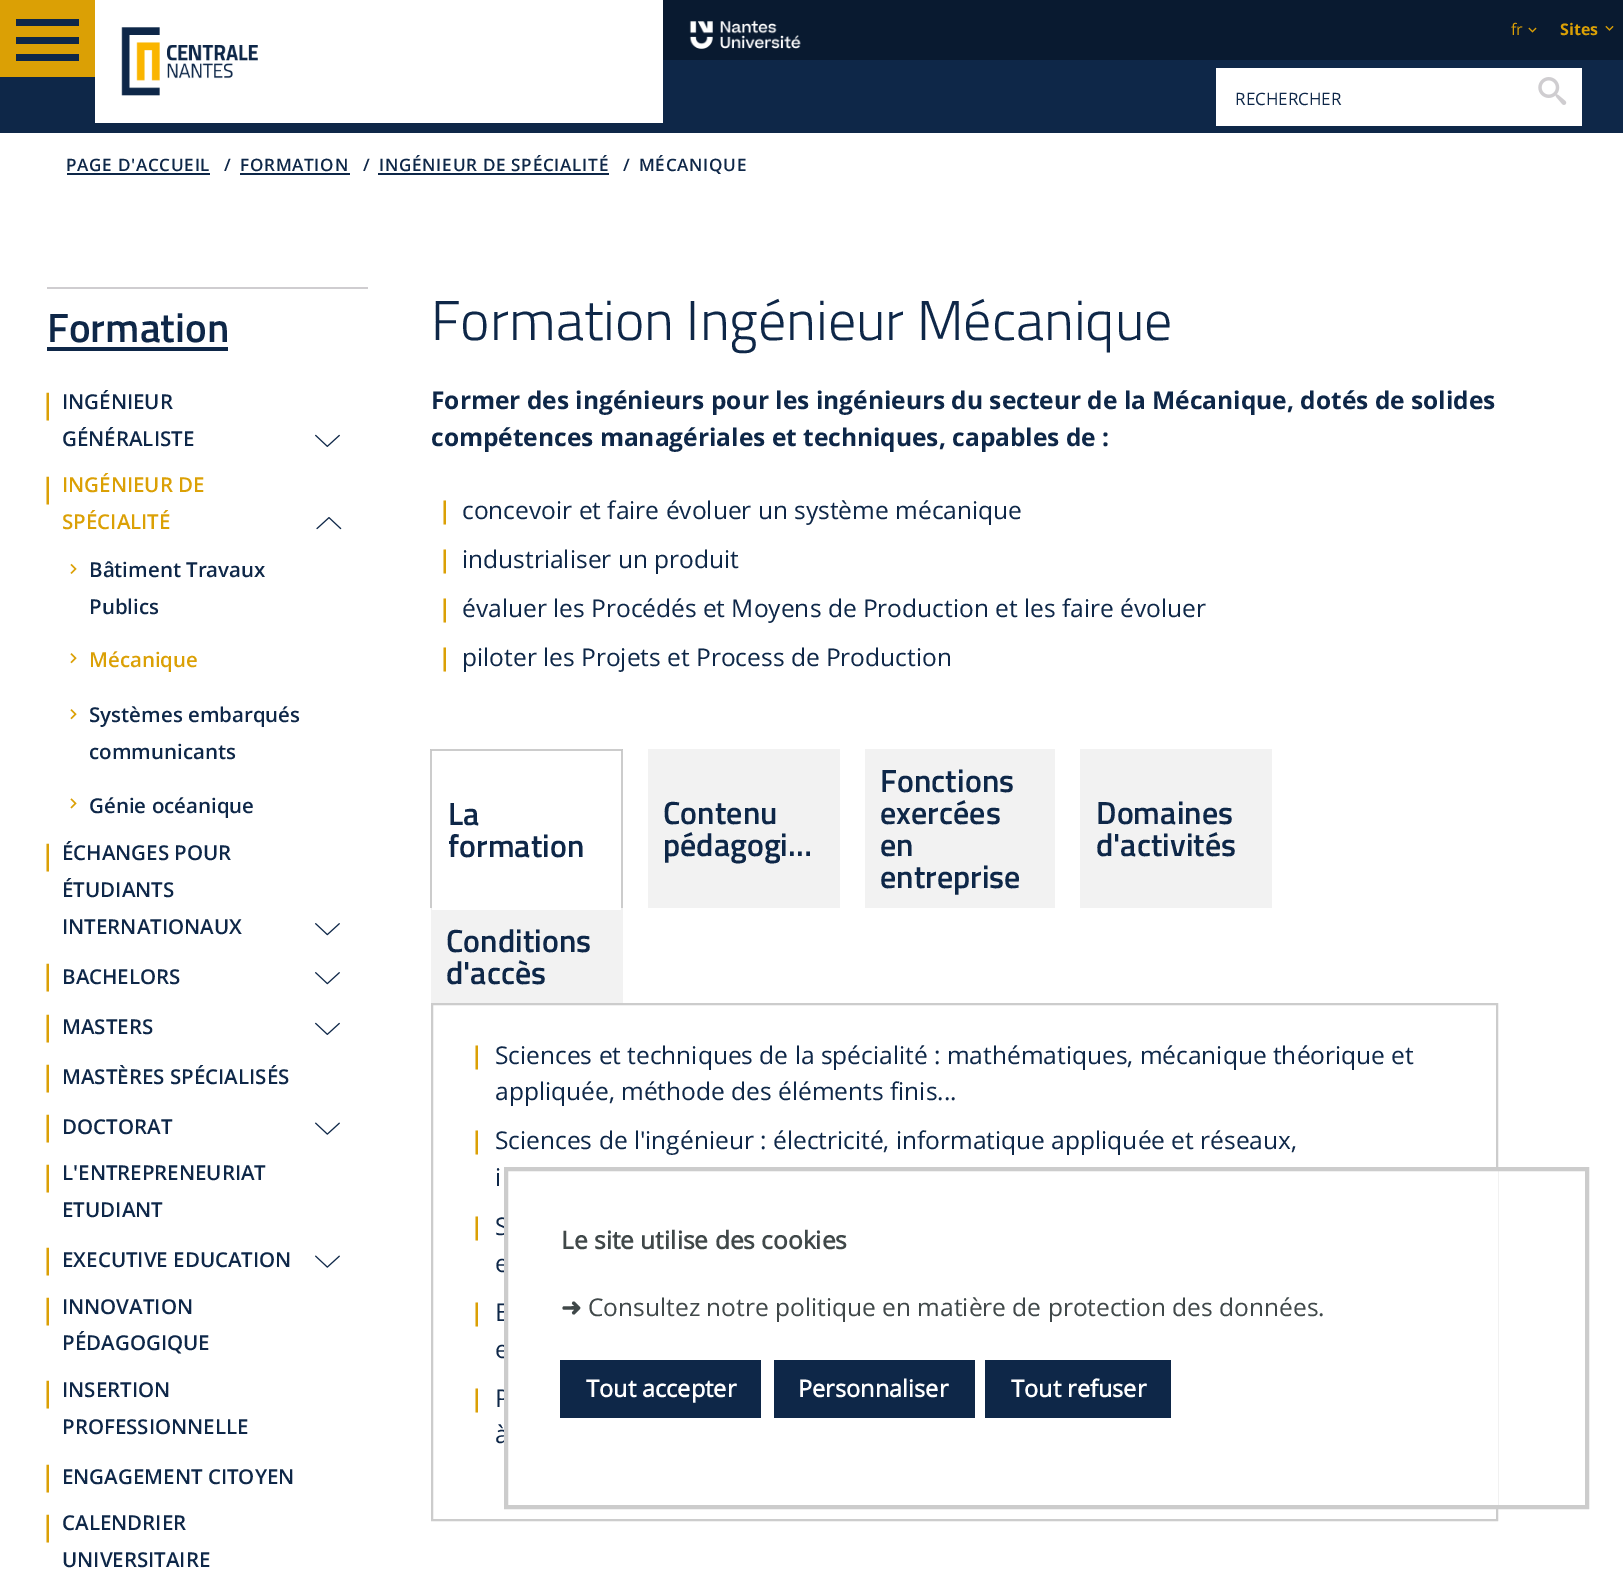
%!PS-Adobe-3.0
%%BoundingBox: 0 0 1623 1571
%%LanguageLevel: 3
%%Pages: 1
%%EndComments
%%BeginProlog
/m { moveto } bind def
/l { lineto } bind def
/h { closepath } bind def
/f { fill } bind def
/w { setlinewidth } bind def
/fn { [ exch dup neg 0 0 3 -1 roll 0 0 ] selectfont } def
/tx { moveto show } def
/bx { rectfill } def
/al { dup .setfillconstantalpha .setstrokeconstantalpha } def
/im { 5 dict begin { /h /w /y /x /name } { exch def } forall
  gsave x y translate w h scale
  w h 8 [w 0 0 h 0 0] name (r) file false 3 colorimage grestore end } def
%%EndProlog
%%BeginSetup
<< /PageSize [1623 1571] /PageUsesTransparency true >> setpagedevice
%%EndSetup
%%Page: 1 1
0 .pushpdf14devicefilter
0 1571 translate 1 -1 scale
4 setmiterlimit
1 setgray
0 0 1623 1571 bx
0.035 0.102 0.188 setrgbcolor
663 0 960 60 bx
(image0.raw) 689 20 112 29 im
/OpenSans-Regular 16 fn
0.859 0.627 0.02 setrgbcolor
(fr) 1511 35 tx
(image1.raw) 1528 27 9 6 im
/OpenSans-Bold 16 fn
(Sites) 1560 35 tx
(image2.raw) 1605 25 9 6 im
0.055 0.153 0.282 setrgbcolor
0 60 1623 73 bx
1 setgray
95 60 568 63 bx
(image3.raw) 121 27 137 69 im
0.859 0.627 0.02 setrgbcolor
0 0 95 77 bx
0.055 0.153 0.282 setrgbcolor
16 19 m 79 19 l 79 26 l 16 26 l h 16 44 m 16 37 l 79 37 l 79 44 l h 16 61 m 16 54 l 79 54 l 79 61 l h f
1 setgray
1216 68 366 58 bx
/OpenSans-Regular 17 fn
0.055 0.153 0.282 setrgbcolor
(RECHERCHER) 1235 105 tx
(image4.raw) 1538 77 29 28 im
/OpenSans-SemiBold 17.1 fn
66 171 m 0.7 0 (PAGE D'ACCUEIL) ashow
67 173 143 2 bx
224 171 m 0.7 0 (/) ashow
240 171 m 0.7 0 (FORMATION) ashow
240 173 110 2 bx
363 171 m 0.7 0 (/) ashow
379 171 m 0.7 0 (INGÉNIEUR DE SPÉCIALITÉ) ashow
378 173 231 2 bx
623 171 m 0.7 0 (/) ashow
639 171 m 0.7 0 (MÉCANIQUE) ashow
0.812 0.804 0.816 setrgbcolor
47 287 321 2 bx
/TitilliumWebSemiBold-SemiBold 41 fn
0.055 0.153 0.282 setrgbcolor
(Formation) 47 342 tx
47 347 181 4 bx
/OpenSans-SemiBold 28 fn
0.859 0.627 0.02 setrgbcolor
(|) 40 414 tx
/OpenSans-SemiBold 20.5 fn
0.055 0.153 0.282 setrgbcolor
(INGÉNIEUR) 62 409 tx
(GÉNÉRALISTE) 62 446 tx
(image5.raw) 315 434 25 13 im
/OpenSans-SemiBold 28 fn
0.859 0.627 0.02 setrgbcolor
(|) 40 498 tx
/OpenSans-SemiBold 20.5 fn
(INGÉNIEUR DE) 62 492 tx
(SPÉCIALITÉ) 62 529 tx
(image6.raw) 316 517 26 13 im
(image7.raw) 70 563 7 11 im
0.055 0.153 0.282 setrgbcolor
(Bâtiment Travaux) 89 577 tx
(Publics) 89 614 tx
(image8.raw) 70 653 7 11 im
0.859 0.627 0.02 setrgbcolor
(Mécanique) 89 667 tx
(image8.raw) 70 709 7 11 im
0.055 0.153 0.282 setrgbcolor
(Systèmes embarqués) 89 722 tx
(communicants) 89 759 tx
(image9.raw) 70 798 7 11 im
(Génie océanique) 89 813 tx
/OpenSans-SemiBold 28 fn
0.859 0.627 0.02 setrgbcolor
(|) 40 865 tx
/OpenSans-SemiBold 20.5 fn
0.055 0.153 0.282 setrgbcolor
(ÉCHANGES POUR) 62 860 tx
(ÉTUDIANTS) 62 897 tx
(INTERNATIONAUX) 62 934 tx
(image10.raw) 315 923 25 13 im
/OpenSans-SemiBold 28 fn
0.859 0.627 0.02 setrgbcolor
(|) 40 985 tx
/OpenSans-SemiBold 20.5 fn
0.055 0.153 0.282 setrgbcolor
(BACHELORS) 62 984 tx
(image10.raw) 315 972 25 13 im
/OpenSans-SemiBold 28 fn
0.859 0.627 0.02 setrgbcolor
(|) 40 1036 tx
/OpenSans-SemiBold 20.5 fn
0.055 0.153 0.282 setrgbcolor
(MASTERS) 62 1034 tx
(image5.raw) 315 1022 25 13 im
/OpenSans-SemiBold 28 fn
0.859 0.627 0.02 setrgbcolor
(|) 40 1086 tx
/OpenSans-SemiBold 20.5 fn
0.055 0.153 0.282 setrgbcolor
(MASTÈRES SPÉCIALISÉS) 62 1084 tx
/OpenSans-SemiBold 28 fn
0.859 0.627 0.02 setrgbcolor
(|) 40 1136 tx
/OpenSans-SemiBold 20.5 fn
0.055 0.153 0.282 setrgbcolor
(DOCTORAT) 62 1134 tx
(image11.raw) 315 1122 25 13 im
/OpenSans-SemiBold 28 fn
0.859 0.627 0.02 setrgbcolor
(|) 40 1186 tx
/OpenSans-SemiBold 20.5 fn
0.055 0.153 0.282 setrgbcolor
(L'ENTREPRENEURIAT) 62 1180 tx
(ETUDIANT) 62 1217 tx
/OpenSans-SemiBold 28 fn
0.859 0.627 0.02 setrgbcolor
(|) 40 1269 tx
/OpenSans-SemiBold 20.5 fn
0.055 0.153 0.282 setrgbcolor
(EXECUTIVE EDUCATION) 62 1267 tx
(image11.raw) 315 1255 25 13 im
/OpenSans-SemiBold 28 fn
0.859 0.627 0.02 setrgbcolor
(|) 40 1319 tx
/OpenSans-SemiBold 20.5 fn
0.055 0.153 0.282 setrgbcolor
(INNOVATION) 62 1314 tx
(PÉDAGOGIQUE) 62 1350 tx
/OpenSans-SemiBold 28 fn
0.859 0.627 0.02 setrgbcolor
(|) 40 1402 tx
/OpenSans-SemiBold 20.5 fn
0.055 0.153 0.282 setrgbcolor
(INSERTION) 62 1397 tx
(PROFESSIONNELLE) 62 1434 tx
/OpenSans-SemiBold 28 fn
0.859 0.627 0.02 setrgbcolor
(|) 40 1486 tx
/OpenSans-SemiBold 20.5 fn
0.055 0.153 0.282 setrgbcolor
(ENGAGEMENT CITOYEN) 62 1484 tx
/OpenSans-SemiBold 28 fn
0.859 0.627 0.02 setrgbcolor
(|) 40 1536 tx
/OpenSans-SemiBold 20.5 fn
0.055 0.153 0.282 setrgbcolor
(CALENDRIER) 62 1530 tx
(UNIVERSITAIRE) 62 1567 tx
/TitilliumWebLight-Light 56 fn
(Formation Ingénieur Mécanique) 431 340 tx
/OpenSans-Bold 24.5 fn
(Former des ingénieurs pour les ingénieurs du secteur de la Mécanique, dotés de solides) 431 409 tx
(compétences managériales et techniques, capables de :) 431 446 tx
0.859 0.627 0.02 setrgbcolor
(|) 438 519 tx
/OpenSans-Regular 24.5 fn
0.055 0.153 0.282 setrgbcolor
(concevoir et faire évoluer un système mécanique) 462 519 tx
/OpenSans-Bold 24.5 fn
0.859 0.627 0.02 setrgbcolor
(|) 438 568 tx
/OpenSans-Regular 24.5 fn
0.055 0.153 0.282 setrgbcolor
(industrialiser un produit) 462 568 tx
/OpenSans-Bold 24.5 fn
0.859 0.627 0.02 setrgbcolor
(|) 438 617 tx
/OpenSans-Regular 24.5 fn
0.055 0.153 0.282 setrgbcolor
(évaluer les Procédés et Moyens de Production et les faire évoluer) 462 617 tx
/OpenSans-Bold 24.5 fn
0.859 0.627 0.02 setrgbcolor
(|) 438 666 tx
/OpenSans-Regular 24.5 fn
0.055 0.153 0.282 setrgbcolor
(piloter les Projets et Process de Production) 462 666 tx
0.8 setgray
430 749 m 623 749 l 621 751 l 432 751 l h f
0.2 al
0 setgray
623 749 m 623 908 l 621 908 l 621 751 l h f
430 908 m 430 749 l 432 751 l 432 908 l h f
/TitilliumWebSemiBold-SemiBold 32 fn
1 al
0.055 0.153 0.282 setrgbcolor
(La) 448 825 tx
(formation) 448 857 tx
0.949 setgray
431 908 192 95 bx
1 setgray
432 908 189 2 bx
0.949 setgray
648 749 192 159 bx
0.055 0.153 0.282 setrgbcolor
(Contenu) 663 824 tx
(pédagogi…) 663 856 tx
0.949 setgray
865 749 190 159 bx
0.055 0.153 0.282 setrgbcolor
(Fonctions) 880 792 tx
(exercées) 880 824 tx
(en) 880 856 tx
(entreprise) 880 888 tx
0.949 setgray
1080 749 192 159 bx
0.055 0.153 0.282 setrgbcolor
(Domaines) 1096 824 tx
(d'activités) 1096 856 tx
(Conditions) 446 952 tx
(d'accès) 446 984 tx
0.8 setgray
2 w
432 1004 1065 516 rectstroke
/OpenSans-Bold 24.5 fn
0.859 0.627 0.02 setrgbcolor
(|) 470 1064 tx
/OpenSans-Regular 24.5 fn
0.055 0.153 0.282 setrgbcolor
(Sciences et techniques de la spécialité : mathématiques, mécanique théorique et) 495 1064 tx
(appliquée, méthode des éléments finis...) 495 1100 tx
/OpenSans-Bold 24.5 fn
0.859 0.627 0.02 setrgbcolor
(|) 470 1149 tx
/OpenSans-Regular 24.5 fn
0.055 0.153 0.282 setrgbcolor
(Sciences de l'ingénieur : électricité, informatique appliquée et réseaux,) 495 1149 tx
(i) 495 1186 tx
/OpenSans-Bold 24.5 fn
0.859 0.627 0.02 setrgbcolor
(|) 470 1235 tx
/OpenSans-Regular 24.5 fn
0.055 0.153 0.282 setrgbcolor
(S) 495 1235 tx
(e) 495 1272 tx
/OpenSans-Bold 24.5 fn
0.859 0.627 0.02 setrgbcolor
(|) 470 1321 tx
/OpenSans-Regular 24.5 fn
0.055 0.153 0.282 setrgbcolor
(E) 495 1321 tx
(e) 495 1358 tx
/OpenSans-Bold 24.5 fn
0.859 0.627 0.02 setrgbcolor
(|) 470 1407 tx
/OpenSans-Regular 24.5 fn
0.055 0.153 0.282 setrgbcolor
(P) 495 1407 tx
(à) 495 1443 tx
1 setgray
508 1171 990 334 bx
0.8 setgray
4 w
506 1169 1081 338 rectstroke
/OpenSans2-Bold 24.5 fn
0.251 0.282 0.286 setrgbcolor
(Le site utilise des cookies) 561 1249 tx
/DejaVuSans-Bold 24.5 fn
(➜) 561 1316 tx
/OpenSans-Regular 24.5 fn
(Consultez notre politique en matière de protection des données.) 588 1316 tx
0.055 0.153 0.282 setrgbcolor
560 1360 201 58 bx
/OpenSans2-Bold 23.5 fn
1 setgray
(Tout accepter) 586 1397 tx
0.055 0.153 0.282 setrgbcolor
774 1360 201 58 bx
1 setgray
(Personnaliser) 798 1397 tx
0.055 0.153 0.282 setrgbcolor
985 1360 186 58 bx
1 setgray
(Tout refuser) 1011 1397 tx
.poppdf14devicefilter showpage
%%EOF
